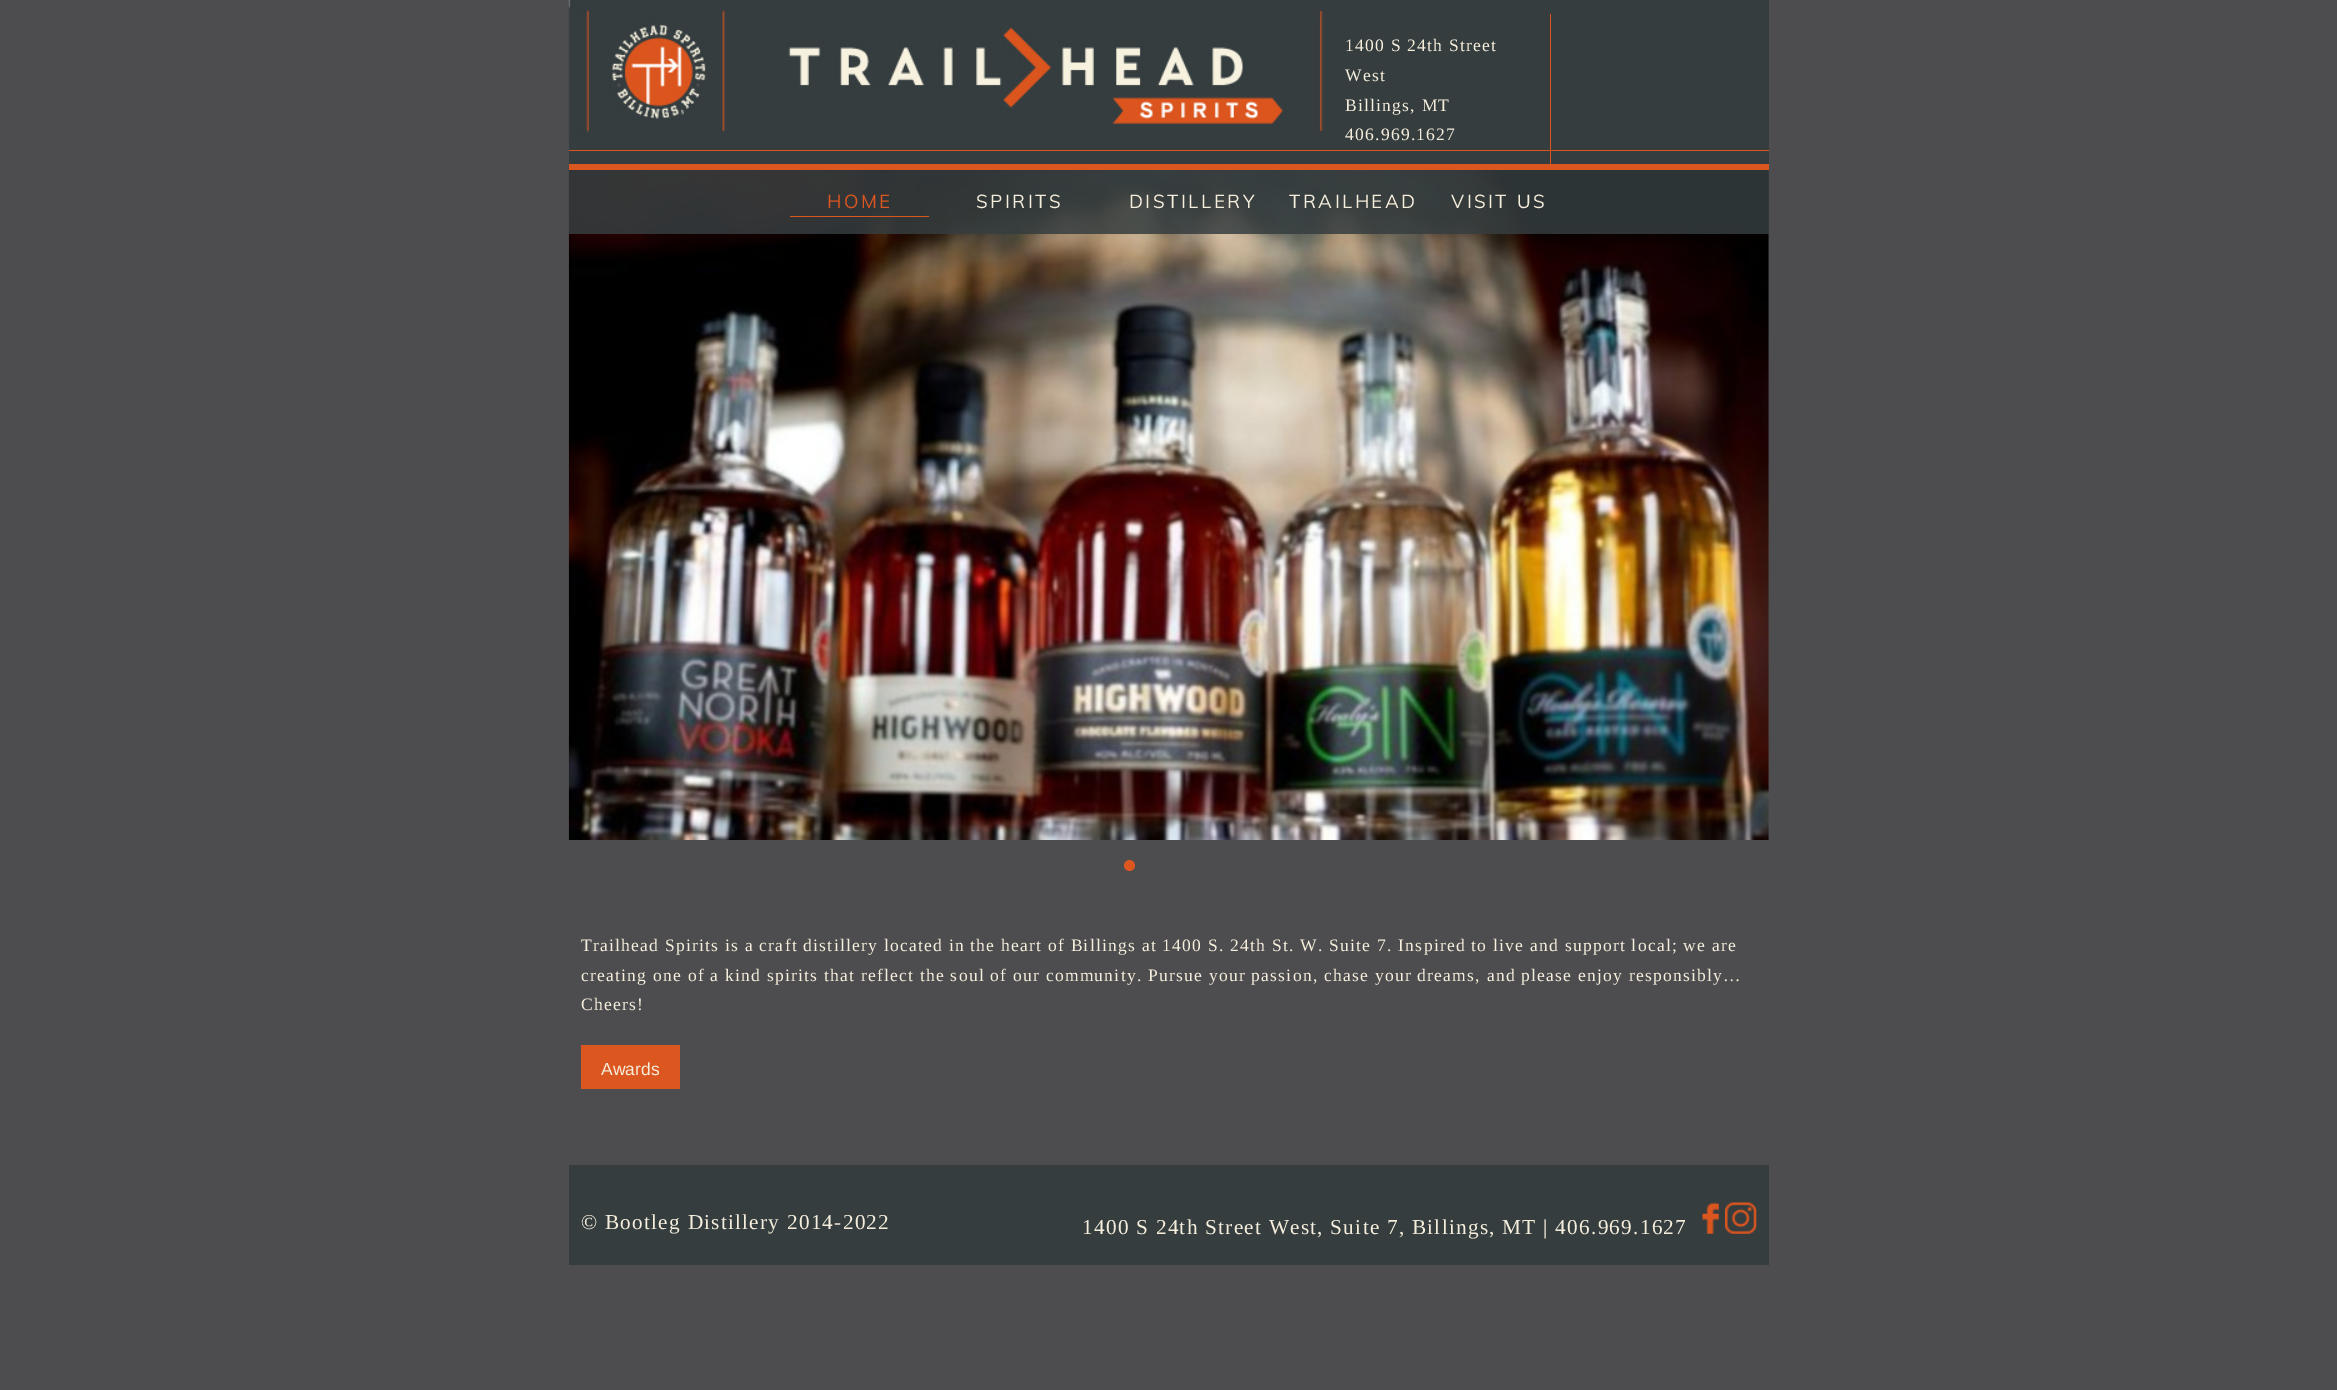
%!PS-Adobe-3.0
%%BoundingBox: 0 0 2337 1390
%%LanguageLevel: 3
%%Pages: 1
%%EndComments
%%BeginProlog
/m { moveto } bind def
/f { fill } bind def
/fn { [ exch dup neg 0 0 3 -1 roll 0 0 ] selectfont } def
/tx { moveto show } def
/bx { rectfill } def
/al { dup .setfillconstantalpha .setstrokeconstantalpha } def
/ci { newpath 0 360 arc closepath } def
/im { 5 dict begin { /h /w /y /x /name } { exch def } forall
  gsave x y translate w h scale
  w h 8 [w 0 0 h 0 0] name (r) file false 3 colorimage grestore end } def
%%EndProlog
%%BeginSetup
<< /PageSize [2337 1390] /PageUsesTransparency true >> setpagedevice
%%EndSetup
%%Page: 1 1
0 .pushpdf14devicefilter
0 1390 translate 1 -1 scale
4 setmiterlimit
0.302 0.302 0.31 setrgbcolor
0 0 2337 1390 bx
0.208 0.239 0.247 setrgbcolor
569 0 1200 164 bx
0.859 0.337 0.122 setrgbcolor
1550 14 1 154 bx
569 150 1200 1 bx
(image0.raw) 568 0 755 141 im
/LiberationSerif-Regular 17.5 fn
0.965 0.933 0.863 setrgbcolor
1345 51 m 1.25 0 (1400 S 24th Street) ashow
1345 81 m 1.25 0 (West) ashow
1345 111 m 1.25 0 (Billings, MT) ashow
1345 140 m 1.25 0 (406.969.1627) ashow
(image1.raw) 568 165 1201 675 im
0.859 0.341 0.122 setrgbcolor
1129.5 865.5 5.5 ci f
569 164 1200 6 bx
0.85 al
0.208 0.239 0.247 setrgbcolor
569 170 1200 64 bx
1 al
0.859 0.341 0.122 setrgbcolor
790 216 139 1 bx
/Muli-Regular 18.75 fn
827 208 m 2.5 0 (HOME) ashow
0.965 0.933 0.863 setrgbcolor
976 208 m 2.5 0 (SPIRITS) ashow
1129 208 m 2.5 0 (DISTILLERY) ashow
1289 208 m 2.5 0 (TRAILHEAD) ashow
1451 208 m 2.5 0 (VISIT US) ashow
/LiberationSerif-Regular 17.5 fn
581 951 m 1.25 0 (Trailhead Spirits is a craft distillery located in the heart of Billings at 1400 S. 24th St. W. Suite 7. Inspired to live and support local; we are) ashow
581 981 m 1.25 0 (creating one of a kind spirits that reflect the soul of our community. Pursue your passion, chase your dreams, and please enjoy responsibly…) ashow
581 1010 m 1.25 0 (Cheers!) ashow
0.859 0.341 0.122 setrgbcolor
581 1045 99 44 bx
/LiberationSans-Regular 17.5 fn
0.965 0.933 0.863 setrgbcolor
(Awards) 601 1075 tx
0.208 0.239 0.247 setrgbcolor
569 1165 1200 100 bx
/LiberationSerif-Regular 21.25 fn
0.965 0.933 0.863 setrgbcolor
581 1229 m 1.25 0 (© Bootleg Distillery 2014-2022) ashow
1082 1234 m 1.25 0 (1400 S 24th Street West, Suite 7, Billings, MT | 406.969.1627) ashow
(image2.raw) 1702 1202 17 32 im
(image3.raw) 1725 1202 32 32 im
.poppdf14devicefilter showpage
%%EOF
